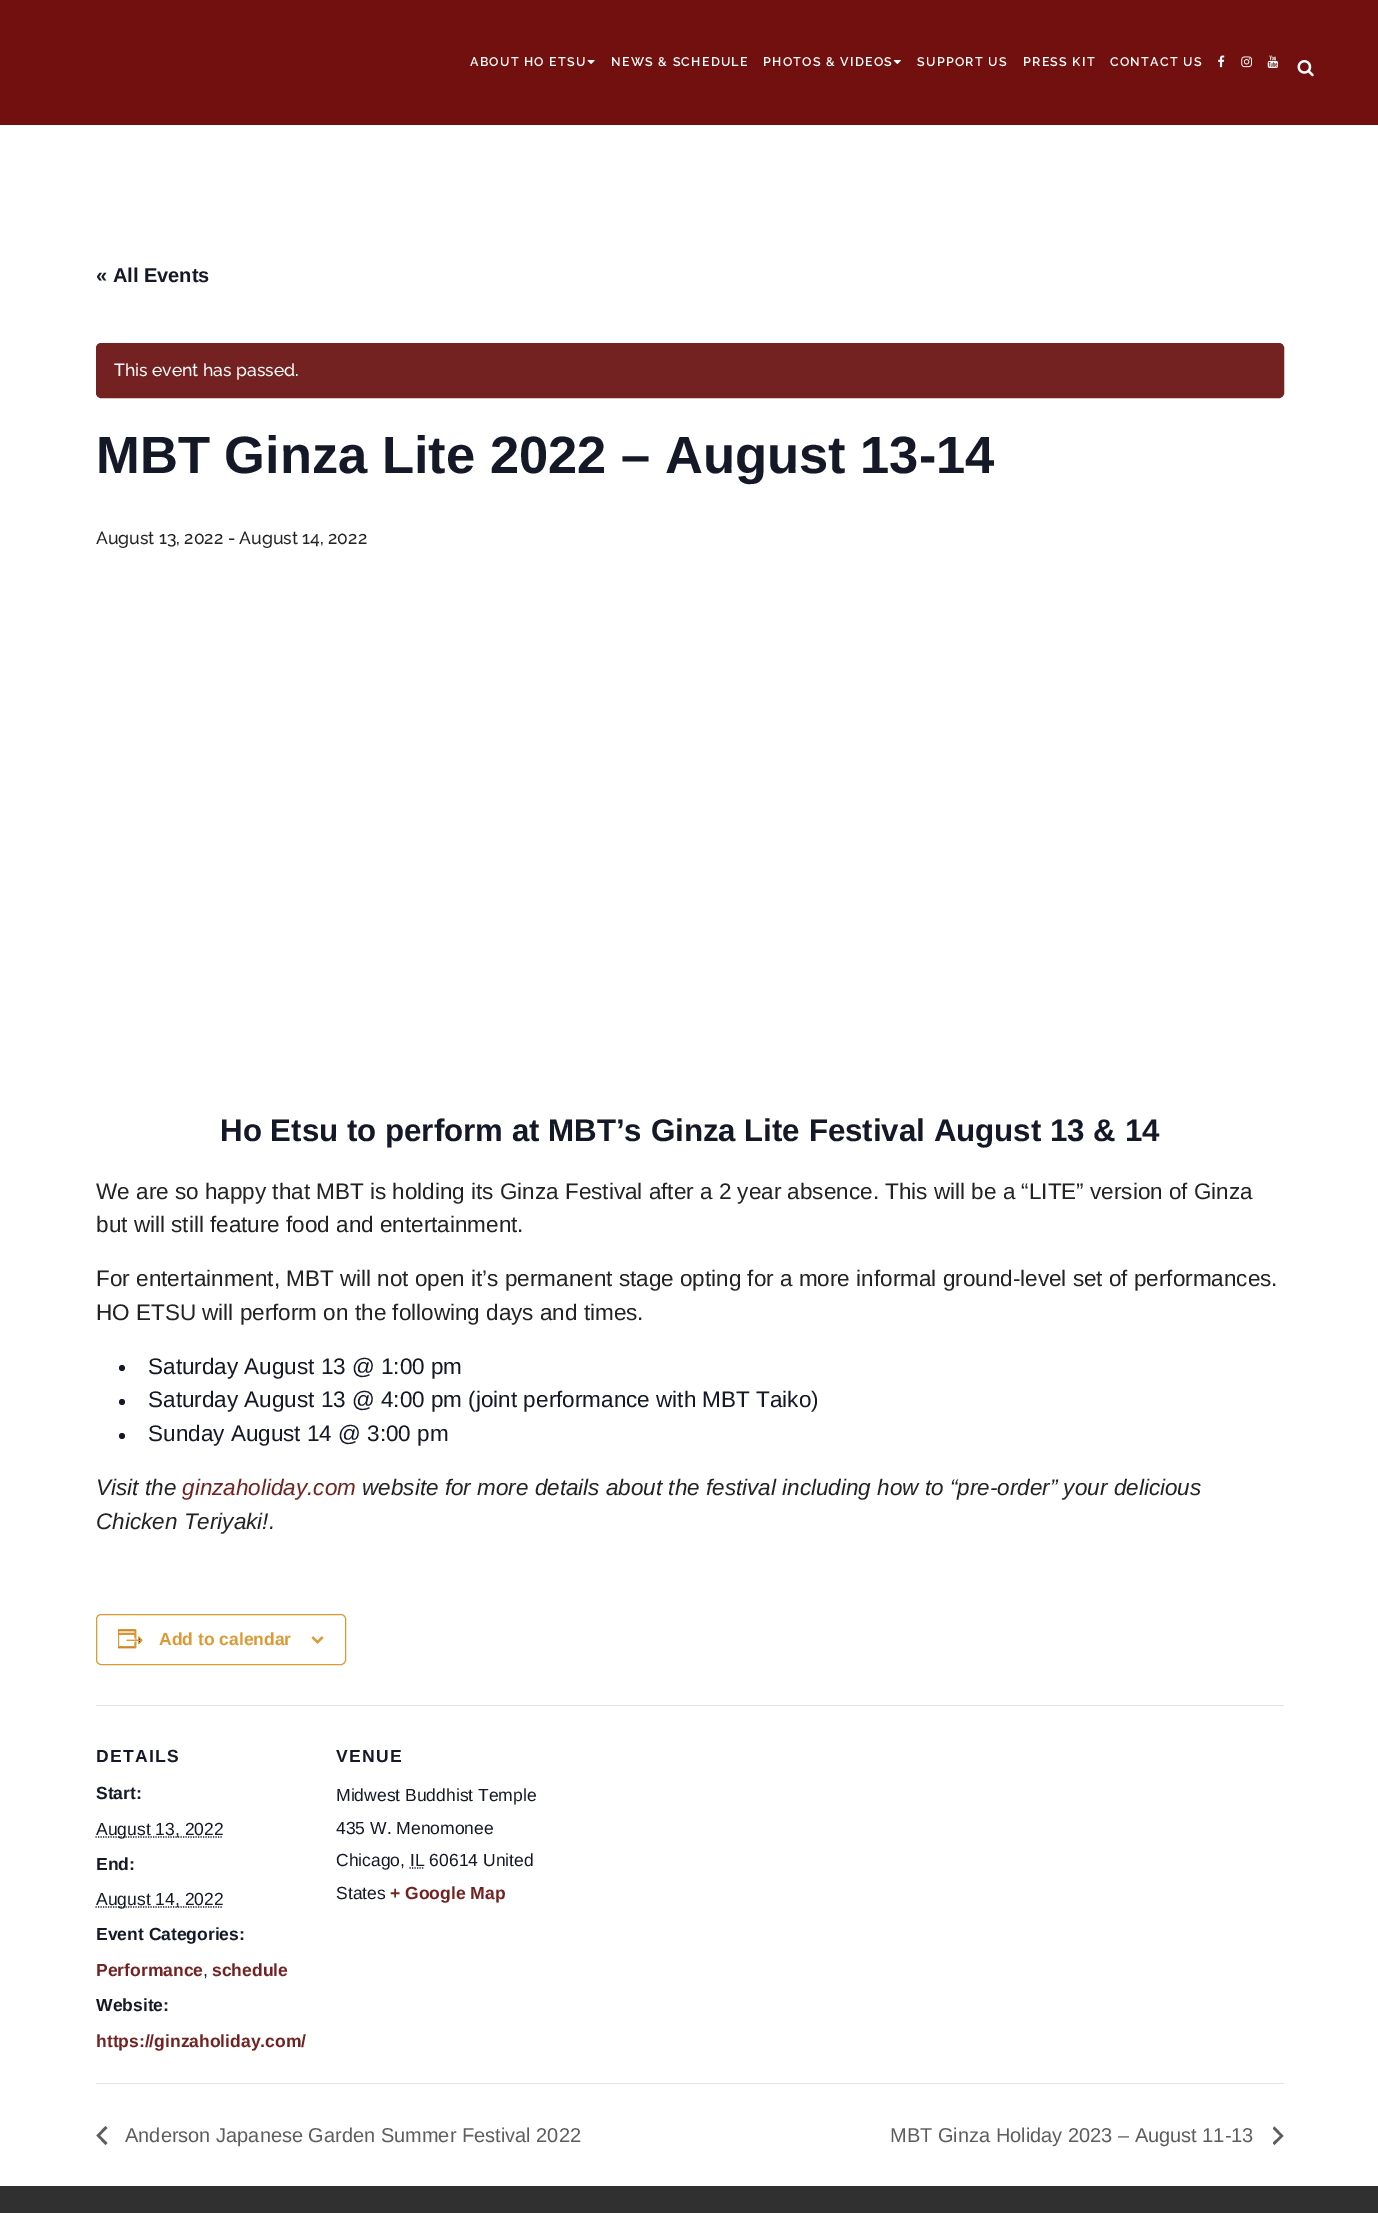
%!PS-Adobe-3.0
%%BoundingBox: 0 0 1378 2213
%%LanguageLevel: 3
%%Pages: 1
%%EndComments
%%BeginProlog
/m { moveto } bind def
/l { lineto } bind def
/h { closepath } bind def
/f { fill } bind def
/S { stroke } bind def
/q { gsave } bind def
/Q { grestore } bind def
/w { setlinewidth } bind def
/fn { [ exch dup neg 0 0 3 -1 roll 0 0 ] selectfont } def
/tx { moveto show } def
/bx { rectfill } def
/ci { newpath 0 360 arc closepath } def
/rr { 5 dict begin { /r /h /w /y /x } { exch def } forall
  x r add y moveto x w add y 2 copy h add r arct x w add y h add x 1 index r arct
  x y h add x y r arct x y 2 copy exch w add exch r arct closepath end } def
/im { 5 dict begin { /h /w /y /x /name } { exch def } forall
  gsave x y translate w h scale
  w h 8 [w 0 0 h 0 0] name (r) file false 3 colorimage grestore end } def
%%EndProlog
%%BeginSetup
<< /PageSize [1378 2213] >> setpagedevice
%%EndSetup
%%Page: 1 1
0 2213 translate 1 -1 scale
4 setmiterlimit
1 setgray
0 0 1378 2213 bx
0.447 0.063 0.063 setrgbcolor
0 0 1378 125 bx
/Raleway-SemiBold 12.5 fn
1 setgray
470 66 m 1.25 0 (ABOUT HO ETSU) ashow
(image0.raw) 587 60 8 4 im
611 66 m 1.25 0 (NEWS & SCHEDULE) ashow
763 66 m 1.25 0 (PHOTOS & VIDEOS) ashow
(image1.raw) 893 60 8 4 im
917 66 m 1.25 0 (SUPPORT US) ashow
1023 66 m 1.25 0 (PRESS KIT) ashow
1110 66 m 1.25 0 (CONTACT US) ashow
(image2.raw) 1218 55 7 13 im
(image3.raw) 1241 56 11 12 im
(image4.raw) 1267 55 12 13 im
(image5.raw) 1297 60 17 17 im
/LiberationSans-Bold 20 fn
0.078 0.094 0.153 setrgbcolor
(« All Events) 96 282 tx
0.451 0.129 0.129 setrgbcolor
96.5 343.5 1187 54 4.5 rr q f Q
S
/Raleway-Medium 17.5 fn
1 setgray
(This event has passed.) 114 376 tx
/LiberationSans-Bold 52.5 fn
0.078 0.094 0.153 setrgbcolor
(MBT Ginza Lite 2022 – August 13-14) 96 473 tx
/Raleway-Medium 17.5 fn
0.137 setgray
(August 13, 2022 - August 14, 2022) 96 544 tx
/LiberationSans-Bold 31.25 fn
0.078 0.094 0.153 setrgbcolor
(Ho Etsu to perform at MBT’s Ginza Lite Festival August 13 & 14) 220 1141 tx
/LiberationSans-Regular 22.5 fn
0.137 setgray
(We are so happy that MBT is holding its Ginza Festival after a 2 year absence. This will be a “LITE” version of Ginza) 96 1199 tx
(but will still feature food and entertainment.) 96 1232 tx
(For entertainment, MBT will not open it’s permanent stage opting for a more informal ground-level set of performances.) 96 1286 tx
(HO ETSU will perform on the following days and times.) 96 1320 tx
0.078 0.094 0.153 setrgbcolor
122 1368 3 ci f
(Saturday August 13 @ 1:00 pm) 148 1374 tx
122 1402 3 ci f
(Saturday August 13 @ 4:00 pm \(joint performance with MBT Taiko\)) 148 1407 tx
122 1436 3 ci f
(Sunday August 14 @ 3:00 pm) 148 1441 tx
/LiberationSans-Italic 22.5 fn
0.137 setgray
(Visit the) 96 1495 tx
0.451 0.129 0.129 setrgbcolor
(ginzaholiday.com) 182 1495 tx
0.137 setgray
(website for more details about the festival including how to “pre-order” your delicious) 362 1495 tx
(Chicken Teriyaki!.) 96 1529 tx
0.867 0.6 0.2 setrgbcolor
96.5 1614.5 249 50 4.5 rr S
(image6.raw) 118 1629 25 20 im
/LiberationSans-Bold 17.5 fn
(Add to calendar) 159 1645 tx
(image7.raw) 311 1636 13 8 im
0.894 setgray
96 1705 1188 1 bx
0.078 0.094 0.153 setrgbcolor
96 1762 m 1.25 0 (DETAILS) ashow
(Start:) 96 1799 tx
1.2 w
[1.25 1.25] 0 setdash
95.5 1837 m 223 1837 l S
/LiberationSans-Regular 17.5 fn
(August 13, 2022) 96 1835 tx
/LiberationSans-Bold 17.5 fn
(End:) 96 1870 tx
95.5 1907 m 223 1907 l S
/LiberationSans-Regular 17.5 fn
(August 14, 2022) 96 1905 tx
/LiberationSans-Bold 17.5 fn
(Event Categories:) 96 1940 tx
0.451 0.129 0.129 setrgbcolor
(Performance) 96 1976 tx
/LiberationSans-Regular 17.5 fn
0.078 0.094 0.153 setrgbcolor
(,) 203 1976 tx
/LiberationSans-Bold 17.5 fn
0.451 0.129 0.129 setrgbcolor
(schedule) 212 1976 tx
0.078 0.094 0.153 setrgbcolor
(Website:) 96 2011 tx
0.451 0.129 0.129 setrgbcolor
(https://ginzaholiday.com/) 96 2047 tx
0.078 0.094 0.153 setrgbcolor
336 1762 m 1.25 0 (VENUE) ashow
/LiberationSans-Regular 17.5 fn
(Midwest Buddhist Temple) 336 1801 tx
(435 W. Menomonee) 336 1834 tx
(Chicago, IL 60614 United) 336 1866 tx
409.5 1868 m 424 1868 l S
(States) 336 1899 tx
/LiberationSans-Bold 17.5 fn
0.451 0.129 0.129 setrgbcolor
(+ Google Map) 390 1899 tx
0.894 setgray
96 2083 1188 1 bx
0.365 setgray
107.5 2143 m 105.5 2145 l 96.5 2135.5 l 105.5 2126 l 107.5 2128 l 100 2135.5 l h f
/LiberationSans-Regular 20 fn
(Anderson Japanese Garden Summer Festival 2022) 125 2142 tx
(MBT Ginza Holiday 2023 – August 11-13) 890 2142 tx
q
1273 2126 11 19 rectclip
1272.5 2128.5 m 1274.5 2126.5 l 1283.5 2136 l 1274.5 2145 l 1272.5 2143 l 1280 2136 l h f
Q
0.188 setgray
0 2186 1378 27 bx
showpage
%%EOF
